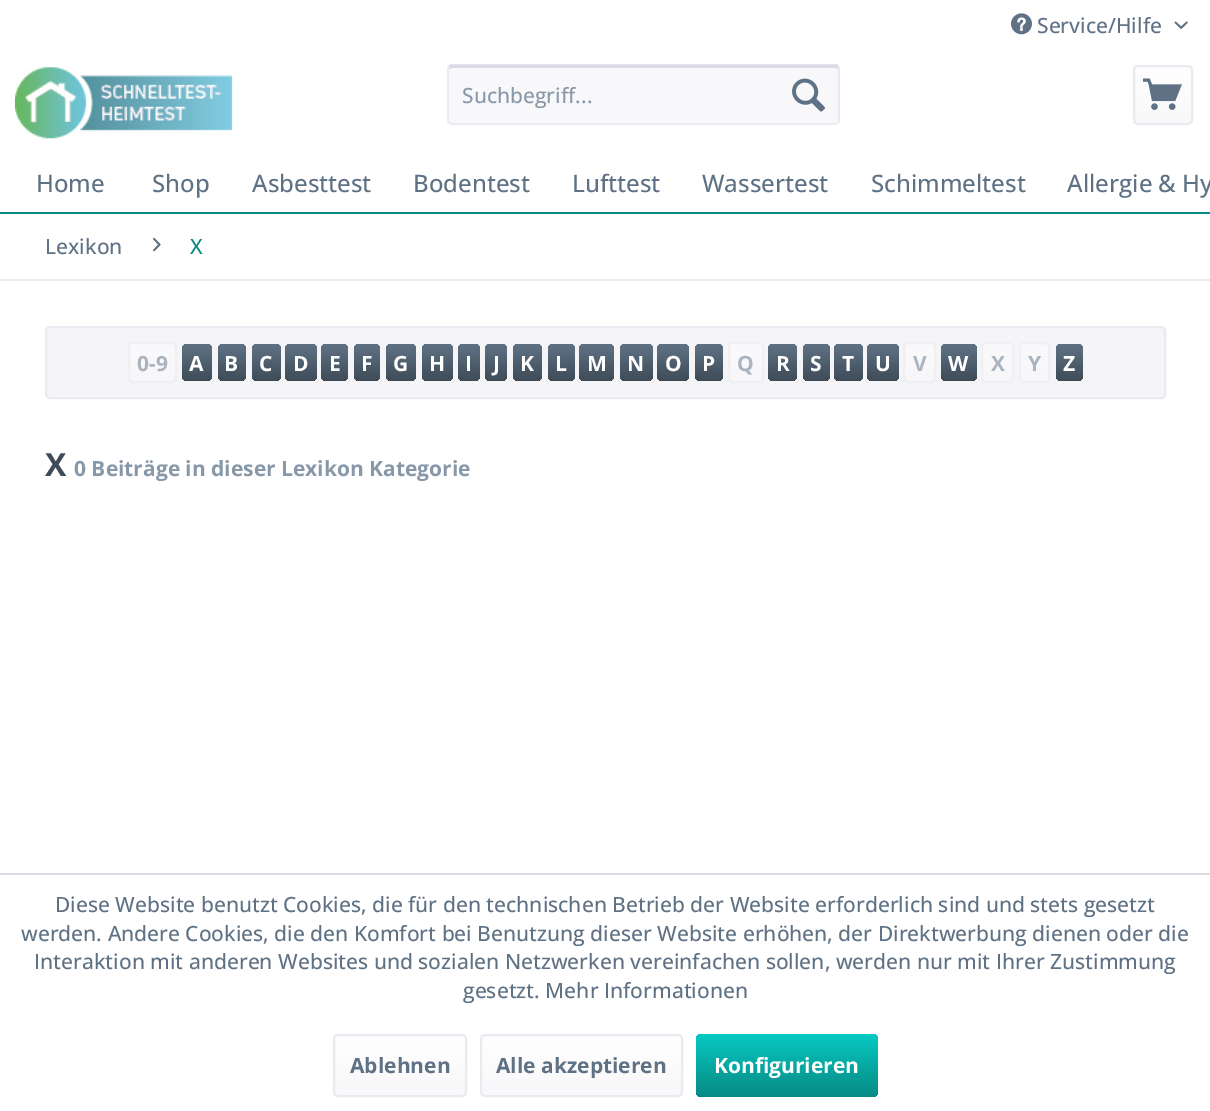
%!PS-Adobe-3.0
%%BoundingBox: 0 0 1210 1111
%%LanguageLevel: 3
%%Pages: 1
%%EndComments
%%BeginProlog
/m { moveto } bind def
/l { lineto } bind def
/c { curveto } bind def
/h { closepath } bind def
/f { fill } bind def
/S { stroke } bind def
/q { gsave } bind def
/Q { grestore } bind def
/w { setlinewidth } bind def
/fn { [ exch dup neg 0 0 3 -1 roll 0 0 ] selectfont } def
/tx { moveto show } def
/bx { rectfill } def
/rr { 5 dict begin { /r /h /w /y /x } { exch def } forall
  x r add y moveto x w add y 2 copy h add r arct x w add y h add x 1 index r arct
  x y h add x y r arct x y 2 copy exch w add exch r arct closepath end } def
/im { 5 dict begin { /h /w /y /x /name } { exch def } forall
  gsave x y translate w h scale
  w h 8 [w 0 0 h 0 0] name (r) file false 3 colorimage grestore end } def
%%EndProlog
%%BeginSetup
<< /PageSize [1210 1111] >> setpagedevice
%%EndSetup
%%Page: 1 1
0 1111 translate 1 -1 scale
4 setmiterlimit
1 setgray
0 0 1210 1111 bx
(image0.raw) 1011 13 21 22 im
/OpenSans-Medium 21 fn
0.373 0.447 0.522 setrgbcolor
(Service/Hilfe) 1037 33 tx
(image1.raw) 1174 21 14 8 im
(image2.raw) 15 67 218 72 im
0.973 0.973 0.98 setrgbcolor
447 65 393 60 5 rr f
0.855 0.855 0.898 setrgbcolor
452 68 m 836 68 l 837 68 838 69 838 70 c 838 122 l 839 122 839 121 839 120 c 839 69 l 839 67 838 66 836 66 c 452 66 l 450 66 449 67 449 69 c h f
0.859 0.859 0.898 setrgbcolor
1.5 w
449 66.5 m 449.5 65.5 450.5 65 451.5 65 c 835.5 65 l 836.5 65 837.5 65.5 838 66.5 c S
0.918 0.918 0.941 setrgbcolor
838 66.5 m 839 67 839 68 839 69 c 839 120 l 839 121 839 122 838 122.5 c 837.5 123.5 836.5 124 835.5 124 c 451.5 124 l 450.5 124 449.5 123.5 449 122.5 c 448 122 448 121 448 120 c 448 69 l 448 68 448 67 449 66.5 c S
0.529 0.596 0.663 setrgbcolor
(Suchbegriff...) 462 103 tx
(image3.raw) 792 78 33 34 im
q 1134 66 57 57 3 rr clip newpath
<< /ShadingType 2 /ColorSpace /DeviceRGB /Coords [1163 66 1163 123] /Extend [true true] /Function << /FunctionType 2 /Domain [0 1] /C0 [1 1 1] /C1 [0.973 0.973 0.98] /N 1 >> >> shfill Q
0.918 0.918 0.941 setrgbcolor
2 w
1134 66 58 58 4 rr S
(image4.raw) 1143 78 39 32 im
0.031 0.541 0.522 setrgbcolor
0 212 1210 2 bx
/OpenSans-Medium 24 fn
0.373 0.447 0.522 setrgbcolor
(Home) 36 192 tx
(Shop) 152 192 tx
(Asbesttest) 252 192 tx
(Bodentest) 413 192 tx
(Lufttest) 572 192 tx
(Wassertest) 702 192 tx
(Schimmeltest) 871 192 tx
(Allergie & Hy) 1067 192 tx
0.918 0.918 0.941 setrgbcolor
0 279 1210 2 bx
/OpenSans-Medium 21 fn
0.373 0.447 0.522 setrgbcolor
(Lexikon) 45 254 tx
(image5.raw) 153 237 8 15 im
0.031 0.541 0.522 setrgbcolor
(X) 190 254 tx
0.961 0.961 0.973 setrgbcolor
46 327 1119 71 4 rr q f Q
0.918 0.918 0.941 setrgbcolor
S
q 129 344 47 37 3 rr clip newpath
<< /ShadingType 2 /ColorSpace /DeviceRGB /Coords [152 344 152 381] /Extend [true true] /Function << /FunctionType 2 /Domain [0 1] /C0 [0.98 0.98 0.988] /C1 [0.969 0.969 0.976] /N 1 >> >> shfill Q
0.941 0.941 0.957 setrgbcolor
129 343 47 39 4 rr S
/OpenSans-Bold 21 fn
0.667 0.706 0.749 setrgbcolor
(0-9) 137 371 tx
q 182 344 30 37 5 rr clip newpath
<< /ShadingType 2 /ColorSpace /DeviceRGB /Coords [197 344 197 381] /Extend [true true] /Function << /FunctionType 2 /Domain [0 1] /C0 [0.373 0.447 0.522] /C1 [0.247 0.298 0.345] /N 1 >> >> shfill Q
1 setgray
(A) 189 371 tx
q 218 344 28 37 5 rr clip newpath
<< /ShadingType 2 /ColorSpace /DeviceRGB /Coords [232 344 232 381] /Extend [true true] /Function << /FunctionType 2 /Domain [0 1] /C0 [0.373 0.447 0.522] /C1 [0.247 0.298 0.345] /N 1 >> >> shfill Q
(B) 224 371 tx
q 252 344 29 37 5 rr clip newpath
<< /ShadingType 2 /ColorSpace /DeviceRGB /Coords [266 344 266 381] /Extend [true true] /Function << /FunctionType 2 /Domain [0 1] /C0 [0.373 0.447 0.522] /C1 [0.247 0.298 0.345] /N 1 >> >> shfill Q
(C) 259 371 tx
q 285 344 32 37 5 rr clip newpath
<< /ShadingType 2 /ColorSpace /DeviceRGB /Coords [301 344 301 381] /Extend [true true] /Function << /FunctionType 2 /Domain [0 1] /C0 [0.373 0.447 0.522] /C1 [0.247 0.298 0.345] /N 1 >> >> shfill Q
(D) 293 371 tx
q 321 344 27 37 5 rr clip newpath
<< /ShadingType 2 /ColorSpace /DeviceRGB /Coords [335 344 335 381] /Extend [true true] /Function << /FunctionType 2 /Domain [0 1] /C0 [0.373 0.447 0.522] /C1 [0.247 0.298 0.345] /N 1 >> >> shfill Q
(E) 329 371 tx
q 354 344 26 37 5 rr clip newpath
<< /ShadingType 2 /ColorSpace /DeviceRGB /Coords [367 344 367 381] /Extend [true true] /Function << /FunctionType 2 /Domain [0 1] /C0 [0.373 0.447 0.522] /C1 [0.247 0.298 0.345] /N 1 >> >> shfill Q
(F) 361 371 tx
q 386 344 30 37 5 rr clip newpath
<< /ShadingType 2 /ColorSpace /DeviceRGB /Coords [401 344 401 381] /Extend [true true] /Function << /FunctionType 2 /Domain [0 1] /C0 [0.373 0.447 0.522] /C1 [0.247 0.298 0.345] /N 1 >> >> shfill Q
(G) 393 371 tx
q 422 344 31 37 5 rr clip newpath
<< /ShadingType 2 /ColorSpace /DeviceRGB /Coords [437 344 437 381] /Extend [true true] /Function << /FunctionType 2 /Domain [0 1] /C0 [0.373 0.447 0.522] /C1 [0.247 0.298 0.345] /N 1 >> >> shfill Q
(H) 429 371 tx
q 458 344 22 37 5 rr clip newpath
<< /ShadingType 2 /ColorSpace /DeviceRGB /Coords [469 344 469 381] /Extend [true true] /Function << /FunctionType 2 /Domain [0 1] /C0 [0.373 0.447 0.522] /C1 [0.247 0.298 0.345] /N 1 >> >> shfill Q
(I) 465 371 tx
q 485 344 22 37 5 rr clip newpath
<< /ShadingType 2 /ColorSpace /DeviceRGB /Coords [496 344 496 381] /Extend [true true] /Function << /FunctionType 2 /Domain [0 1] /C0 [0.373 0.447 0.522] /C1 [0.247 0.298 0.345] /N 1 >> >> shfill Q
(J) 493 371 tx
q 513 344 29 37 5 rr clip newpath
<< /ShadingType 2 /ColorSpace /DeviceRGB /Coords [527 344 527 381] /Extend [true true] /Function << /FunctionType 2 /Domain [0 1] /C0 [0.373 0.447 0.522] /C1 [0.247 0.298 0.345] /N 1 >> >> shfill Q
(K) 520 371 tx
q 548 344 27 37 5 rr clip newpath
<< /ShadingType 2 /ColorSpace /DeviceRGB /Coords [561 344 561 381] /Extend [true true] /Function << /FunctionType 2 /Domain [0 1] /C0 [0.373 0.447 0.522] /C1 [0.247 0.298 0.345] /N 1 >> >> shfill Q
(L) 555 371 tx
q 579 344 35 37 5 rr clip newpath
<< /ShadingType 2 /ColorSpace /DeviceRGB /Coords [596 344 596 381] /Extend [true true] /Function << /FunctionType 2 /Domain [0 1] /C0 [0.373 0.447 0.522] /C1 [0.247 0.298 0.345] /N 1 >> >> shfill Q
(M) 587 371 tx
q 620 344 33 37 5 rr clip newpath
<< /ShadingType 2 /ColorSpace /DeviceRGB /Coords [636 344 636 381] /Extend [true true] /Function << /FunctionType 2 /Domain [0 1] /C0 [0.373 0.447 0.522] /C1 [0.247 0.298 0.345] /N 1 >> >> shfill Q
(N) 627 371 tx
q 657 344 32 37 5 rr clip newpath
<< /ShadingType 2 /ColorSpace /DeviceRGB /Coords [673 344 673 381] /Extend [true true] /Function << /FunctionType 2 /Domain [0 1] /C0 [0.373 0.447 0.522] /C1 [0.247 0.298 0.345] /N 1 >> >> shfill Q
(O) 665 371 tx
q 695 344 28 37 5 rr clip newpath
<< /ShadingType 2 /ColorSpace /DeviceRGB /Coords [709 344 709 381] /Extend [true true] /Function << /FunctionType 2 /Domain [0 1] /C0 [0.373 0.447 0.522] /C1 [0.247 0.298 0.345] /N 1 >> >> shfill Q
(P) 702 371 tx
q 729 344 33 37 3 rr clip newpath
<< /ShadingType 2 /ColorSpace /DeviceRGB /Coords [746 344 746 381] /Extend [true true] /Function << /FunctionType 2 /Domain [0 1] /C0 [0.98 0.98 0.988] /C1 [0.969 0.969 0.976] /N 1 >> >> shfill Q
0.941 0.941 0.957 setrgbcolor
729 343 34 39 4 rr S
0.667 0.706 0.749 setrgbcolor
(Q) 737 371 tx
q 768 344 29 37 5 rr clip newpath
<< /ShadingType 2 /ColorSpace /DeviceRGB /Coords [782 344 782 381] /Extend [true true] /Function << /FunctionType 2 /Domain [0 1] /C0 [0.373 0.447 0.522] /C1 [0.247 0.298 0.345] /N 1 >> >> shfill Q
1 setgray
(R) 776 371 tx
q 803 344 27 37 5 rr clip newpath
<< /ShadingType 2 /ColorSpace /DeviceRGB /Coords [816 344 816 381] /Extend [true true] /Function << /FunctionType 2 /Domain [0 1] /C0 [0.373 0.447 0.522] /C1 [0.247 0.298 0.345] /N 1 >> >> shfill Q
(S) 810 371 tx
q 834 344 29 37 5 rr clip newpath
<< /ShadingType 2 /ColorSpace /DeviceRGB /Coords [848 344 848 381] /Extend [true true] /Function << /FunctionType 2 /Domain [0 1] /C0 [0.373 0.447 0.522] /C1 [0.247 0.298 0.345] /N 1 >> >> shfill Q
(T) 842 371 tx
q 867 344 32 37 5 rr clip newpath
<< /ShadingType 2 /ColorSpace /DeviceRGB /Coords [883 344 883 381] /Extend [true true] /Function << /FunctionType 2 /Domain [0 1] /C0 [0.373 0.447 0.522] /C1 [0.247 0.298 0.345] /N 1 >> >> shfill Q
(U) 875 371 tx
q 905 344 30 37 3 rr clip newpath
<< /ShadingType 2 /ColorSpace /DeviceRGB /Coords [920 344 920 381] /Extend [true true] /Function << /FunctionType 2 /Domain [0 1] /C0 [0.98 0.98 0.988] /C1 [0.969 0.969 0.976] /N 1 >> >> shfill Q
0.941 0.941 0.957 setrgbcolor
904 343 31 39 4 rr S
0.667 0.706 0.749 setrgbcolor
(V) 913 371 tx
q 941 344 36 37 5 rr clip newpath
<< /ShadingType 2 /ColorSpace /DeviceRGB /Coords [959 344 959 381] /Extend [true true] /Function << /FunctionType 2 /Domain [0 1] /C0 [0.373 0.447 0.522] /C1 [0.247 0.298 0.345] /N 1 >> >> shfill Q
1 setgray
(W) 948 371 tx
q 983 344 30 37 3 rr clip newpath
<< /ShadingType 2 /ColorSpace /DeviceRGB /Coords [998 344 998 381] /Extend [true true] /Function << /FunctionType 2 /Domain [0 1] /C0 [0.98 0.98 0.988] /C1 [0.969 0.969 0.976] /N 1 >> >> shfill Q
0.941 0.941 0.957 setrgbcolor
982 343 31 39 4 rr S
0.667 0.706 0.749 setrgbcolor
(X) 991 371 tx
q 1020 344 29 37 3 rr clip newpath
<< /ShadingType 2 /ColorSpace /DeviceRGB /Coords [1034 344 1034 381] /Extend [true true] /Function << /FunctionType 2 /Domain [0 1] /C0 [0.98 0.98 0.988] /C1 [0.969 0.969 0.976] /N 1 >> >> shfill Q
0.941 0.941 0.957 setrgbcolor
1020 343 29 39 4 rr S
0.667 0.706 0.749 setrgbcolor
(Y) 1028 371 tx
q 1056 344 27 37 5 rr clip newpath
<< /ShadingType 2 /ColorSpace /DeviceRGB /Coords [1070 344 1070 381] /Extend [true true] /Function << /FunctionType 2 /Domain [0 1] /C0 [0.373 0.447 0.522] /C1 [0.247 0.298 0.345] /N 1 >> >> shfill Q
1 setgray
(Z) 1063 371 tx
/OpenSans-Bold 32 fn
0.247 0.298 0.345 setrgbcolor
(X) 45 476 tx
/OpenSans-Bold 21 fn
0.529 0.596 0.663 setrgbcolor
(0 Beiträge in dieser Lexikon Kategorie) 74 476 tx
0.855 0.855 0.898 setrgbcolor
0 873 1210 2 bx
/OpenSans-Medium 21 fn
0.373 0.447 0.522 setrgbcolor
(Diese Website benutzt Cookies, die für den technischen Betrieb der Website erforderlich sind und stets gesetzt) 55 912 tx
(werden. Andere Cookies, die den Komfort bei Benutzung dieser Website erhöhen, der Direktwerbung dienen oder die) 21 941 tx
(Interaktion mit anderen Websites und sozialen Netzwerken vereinfachen sollen, werden nur mit Ihrer Zustimmung) 34 969 tx
(gesetzt. Mehr Informationen) 463 998 tx
q 335 1035 130 60 3 rr clip newpath
<< /ShadingType 2 /ColorSpace /DeviceRGB /Coords [400 1035 400 1095] /Extend [true true] /Function << /FunctionType 2 /Domain [0 1] /C0 [1 1 1] /C1 [0.973 0.973 0.98] /N 1 >> >> shfill Q
0.918 0.918 0.941 setrgbcolor
334 1035 132 61 4 rr S
/OpenSans-Bold 21 fn
0.373 0.447 0.522 setrgbcolor
(Ablehnen) 350 1073 tx
q 482 1035 199 60 3 rr clip newpath
<< /ShadingType 2 /ColorSpace /DeviceRGB /Coords [581 1035 581 1095] /Extend [true true] /Function << /FunctionType 2 /Domain [0 1] /C0 [1 1 1] /C1 [0.973 0.973 0.98] /N 1 >> >> shfill Q
0.918 0.918 0.941 setrgbcolor
481 1035 201 61 4 rr S
0.373 0.447 0.522 setrgbcolor
(Alle akzeptieren) 496 1073 tx
q 696 1034 182 63 5 rr clip newpath
<< /ShadingType 2 /ColorSpace /DeviceRGB /Coords [787 1034 787 1097] /Extend [true true] /Function << /FunctionType 2 /Domain [0 1] /C0 [0.024 0.788 0.761] /C1 [0.031 0.541 0.522] /N 1 >> >> shfill Q
1 setgray
(Konfigurieren) 714 1073 tx
showpage
%%EOF
